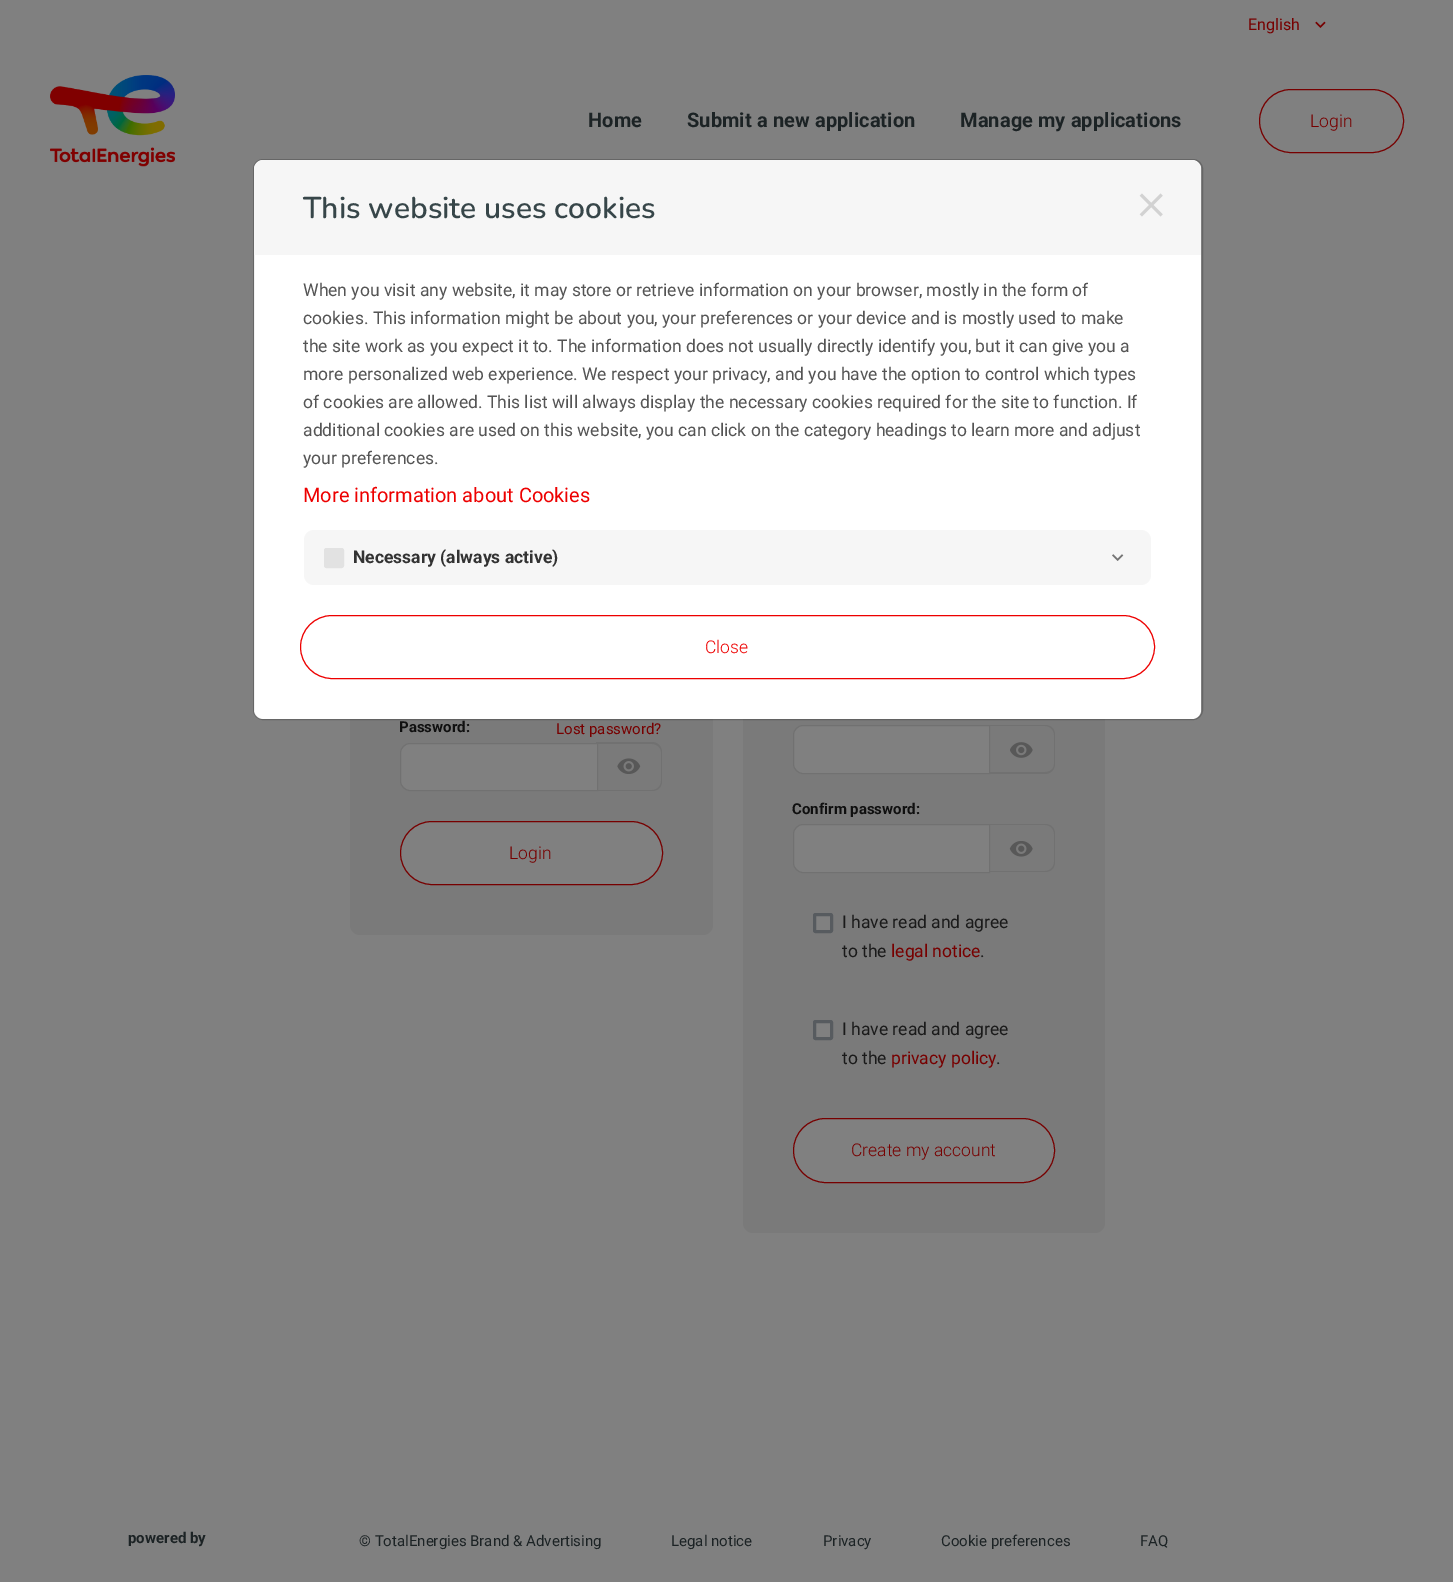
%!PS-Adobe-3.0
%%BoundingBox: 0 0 1453 1582
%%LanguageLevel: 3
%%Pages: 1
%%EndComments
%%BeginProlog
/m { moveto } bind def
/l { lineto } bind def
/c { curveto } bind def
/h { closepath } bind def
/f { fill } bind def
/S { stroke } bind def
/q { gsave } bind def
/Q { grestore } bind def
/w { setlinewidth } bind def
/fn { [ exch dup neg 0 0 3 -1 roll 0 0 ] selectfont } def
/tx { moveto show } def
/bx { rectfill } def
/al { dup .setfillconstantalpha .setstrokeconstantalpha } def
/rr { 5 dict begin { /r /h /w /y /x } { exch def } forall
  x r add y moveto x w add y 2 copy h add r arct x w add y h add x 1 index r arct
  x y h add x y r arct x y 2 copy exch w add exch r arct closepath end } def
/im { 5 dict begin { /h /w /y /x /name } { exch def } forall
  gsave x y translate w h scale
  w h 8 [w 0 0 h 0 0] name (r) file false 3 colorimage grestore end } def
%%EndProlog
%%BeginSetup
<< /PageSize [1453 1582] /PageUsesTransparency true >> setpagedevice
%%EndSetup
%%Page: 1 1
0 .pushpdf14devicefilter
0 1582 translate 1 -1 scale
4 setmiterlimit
0.502 setgray
0 0 1453 1582 bx
/Roboto-Regular 16 fn
0.467 0 0 setrgbcolor
(English) 1248 30 tx
(image0.raw) 1315 21 11 7 im
(image1.raw) 50 75 125 92 im
/Roboto-Bold 20 fn
0.11 0.137 0.145 setrgbcolor
588 127 m 0.1 0 (Home) ashow
687 127 m 0.1 0 (Submit a new application) ashow
960 127 m 0.1 0 (Manage my applications) ashow
0.467 0 0 setrgbcolor
1259.5 89.5 144 63 31.5 rr S
/Roboto-Light 17.5 fn
(Login) 1310 127 tx
0.478 setgray
350 371 363 564 10 rr f
743 371 362 862 10 rr f
1 setgray
254 160 947 559 9 rr f
0.2 al
0 setgray
253.5 159.5 949 560 9.5 rr S
1 al
0.965 setgray
264 160 m 1191 160 l 1196.5 160 1201 164.5 1201 170 c 1201 255 l 254 255 l 254 170 l 254 164.5 258.5 160 264 160 c h f
/Nunito-SemiBold 30 fn
0.216 0.275 0.286 setrgbcolor
(This website uses cookies) 303 218 tx
(image2.raw) 1139 193 24 24 im
/Roboto-Regular 17.5 fn
0.329 setgray
(When you visit any website, it may store or retrieve information on your browser, mostly in the form of) 303 296 tx
(cookies. This information might be about you, your preferences or your device and is mostly used to make) 303 324 tx
(the site work as you expect it to. The information does not usually directly identify you, but it can give you a) 303 352 tx
(more personalized web experience. We respect your privacy, and you have the option to control which types) 303 380 tx
(of cookies are allowed. This list will always display the necessary cookies required for the site to function. If) 303 408 tx
(additional cookies are used on this website, you can click on the category headings to learn more and adjust) 303 436 tx
(your preferences.) 303 464 tx
/Roboto-Regular 20 fn
0.929 0 0 setrgbcolor
(More information about Cookies) 303 502 tx
0.965 setgray
304 530 847 55 10 rr f
0.886 setgray
325.5 549.5 17 17 1 rr q f Q
3 w
S
/Roboto-Bold 17.5 fn
0.2 setgray
(Necessary \(always active\)) 353 563 tx
(image3.raw) 1112 554 12 7 im
0.929 0 0 setrgbcolor
1 w
300.5 615.5 854 63 31.5 rr S
/Roboto-Light 17.5 fn
(Close) 705 653 tx
/Roboto-Bold 15 fn
0.063 setgray
(Password:) 399 732 tx
0.502 setgray
410 743.5 m 597.5 743.5 l 597.5 790.5 l 410 790.5 l 405 790.5 400.5 786 400.5 781 c 400.5 753 l 400.5 748 405 743.5 410 743.5 c h q f Q
0.443 setgray
S
596 742 m 652 742 l 658 742 662 747 662 752 c 662 781 l 662 787 658 791 652 791 c 596 791 l h 596 744 m 652 744 l 657 744 661 748 661 752 c 661 781 l 661 786 657 790 652 790 c 596 790 l h eofill
(image4.raw) 617 758 24 16 im
/Roboto-Regular 15 fn
0.467 0 0 setrgbcolor
(Lost password?) 556 734 tx
0.502 setgray
400.5 821.5 262 63 31.5 rr q f Q
0.467 0 0 setrgbcolor
S
/Roboto-Light 17.5 fn
(Login) 509 859 tx
0.502 setgray
803 725.5 m 989.5 725.5 l 989.5 773.5 l 803 773.5 l 798 773.5 793.5 769 793.5 764 c 793.5 735 l 793.5 730 798 725.5 803 725.5 c h q f Q
0.443 setgray
S
989 725 m 1045 725 l 1051 725 1055 729 1055 735 c 1055 764 l 1055 769 1051 774 1045 774 c 989 774 l h 989 726 m 1045 726 l 1050 726 1054 730 1054 735 c 1054 764 l 1054 769 1050 772 1045 772 c 989 772 l h eofill
(image5.raw) 1010 742 23 16 im
/Roboto-Bold 15 fn
0.063 setgray
(Confirm password:) 792 814 tx
0.502 setgray
803 824.5 m 989.5 824.5 l 989.5 872.5 l 803 872.5 l 798 872.5 793.5 868 793.5 863 c 793.5 834 l 793.5 829 798 824.5 803 824.5 c h q f Q
0.443 setgray
S
989 824 m 1045 824 l 1051 824 1055 828 1055 834 c 1055 862 l 1055 868 1051 872 1045 872 c 989 872 l h 989 825 m 1045 825 l 1050 825 1054 829 1054 834 c 1054 862 l 1054 867 1050 871 1045 871 c 989 871 l h eofill
(image6.raw) 1009 841 24 16 im
0.502 setgray
814.5 914.5 17 17 1 rr q f Q
0.341 0.357 0.373 setrgbcolor
3 w
S
/Roboto-Regular 17.5 fn
0.102 setgray
(I have read and agree) 842 928 tx
(to the) 842 957 tx
0.467 0 0 setrgbcolor
(legal notice) 891 957 tx
0.102 setgray
(.) 980 957 tx
0.502 setgray
814.5 1021.5 17 17 1 rr q f Q
0.341 0.357 0.373 setrgbcolor
S
0.102 setgray
(I have read and agree) 842 1035 tx
(to the) 842 1064 tx
0.467 0 0 setrgbcolor
(privacy policy) 891 1064 tx
0.102 setgray
(.) 996 1064 tx
0.502 setgray
793.5 1118.5 261 64 32 rr q f Q
0.467 0 0 setrgbcolor
1 w
S
/Roboto-Light 17.5 fn
(Create my account) 851 1156 tx
/Roboto-Bold 15 fn
0.11 0.137 0.145 setrgbcolor
(powered by) 128 1543 tx
/Roboto-Regular 15 fn
(© TotalEnergies Brand & Advertising) 359 1546 tx
(Legal notice) 671 1546 tx
(Privacy) 823 1546 tx
(Cookie preferences) 941 1546 tx
(FAQ) 1140 1546 tx
.poppdf14devicefilter showpage
%%EOF
